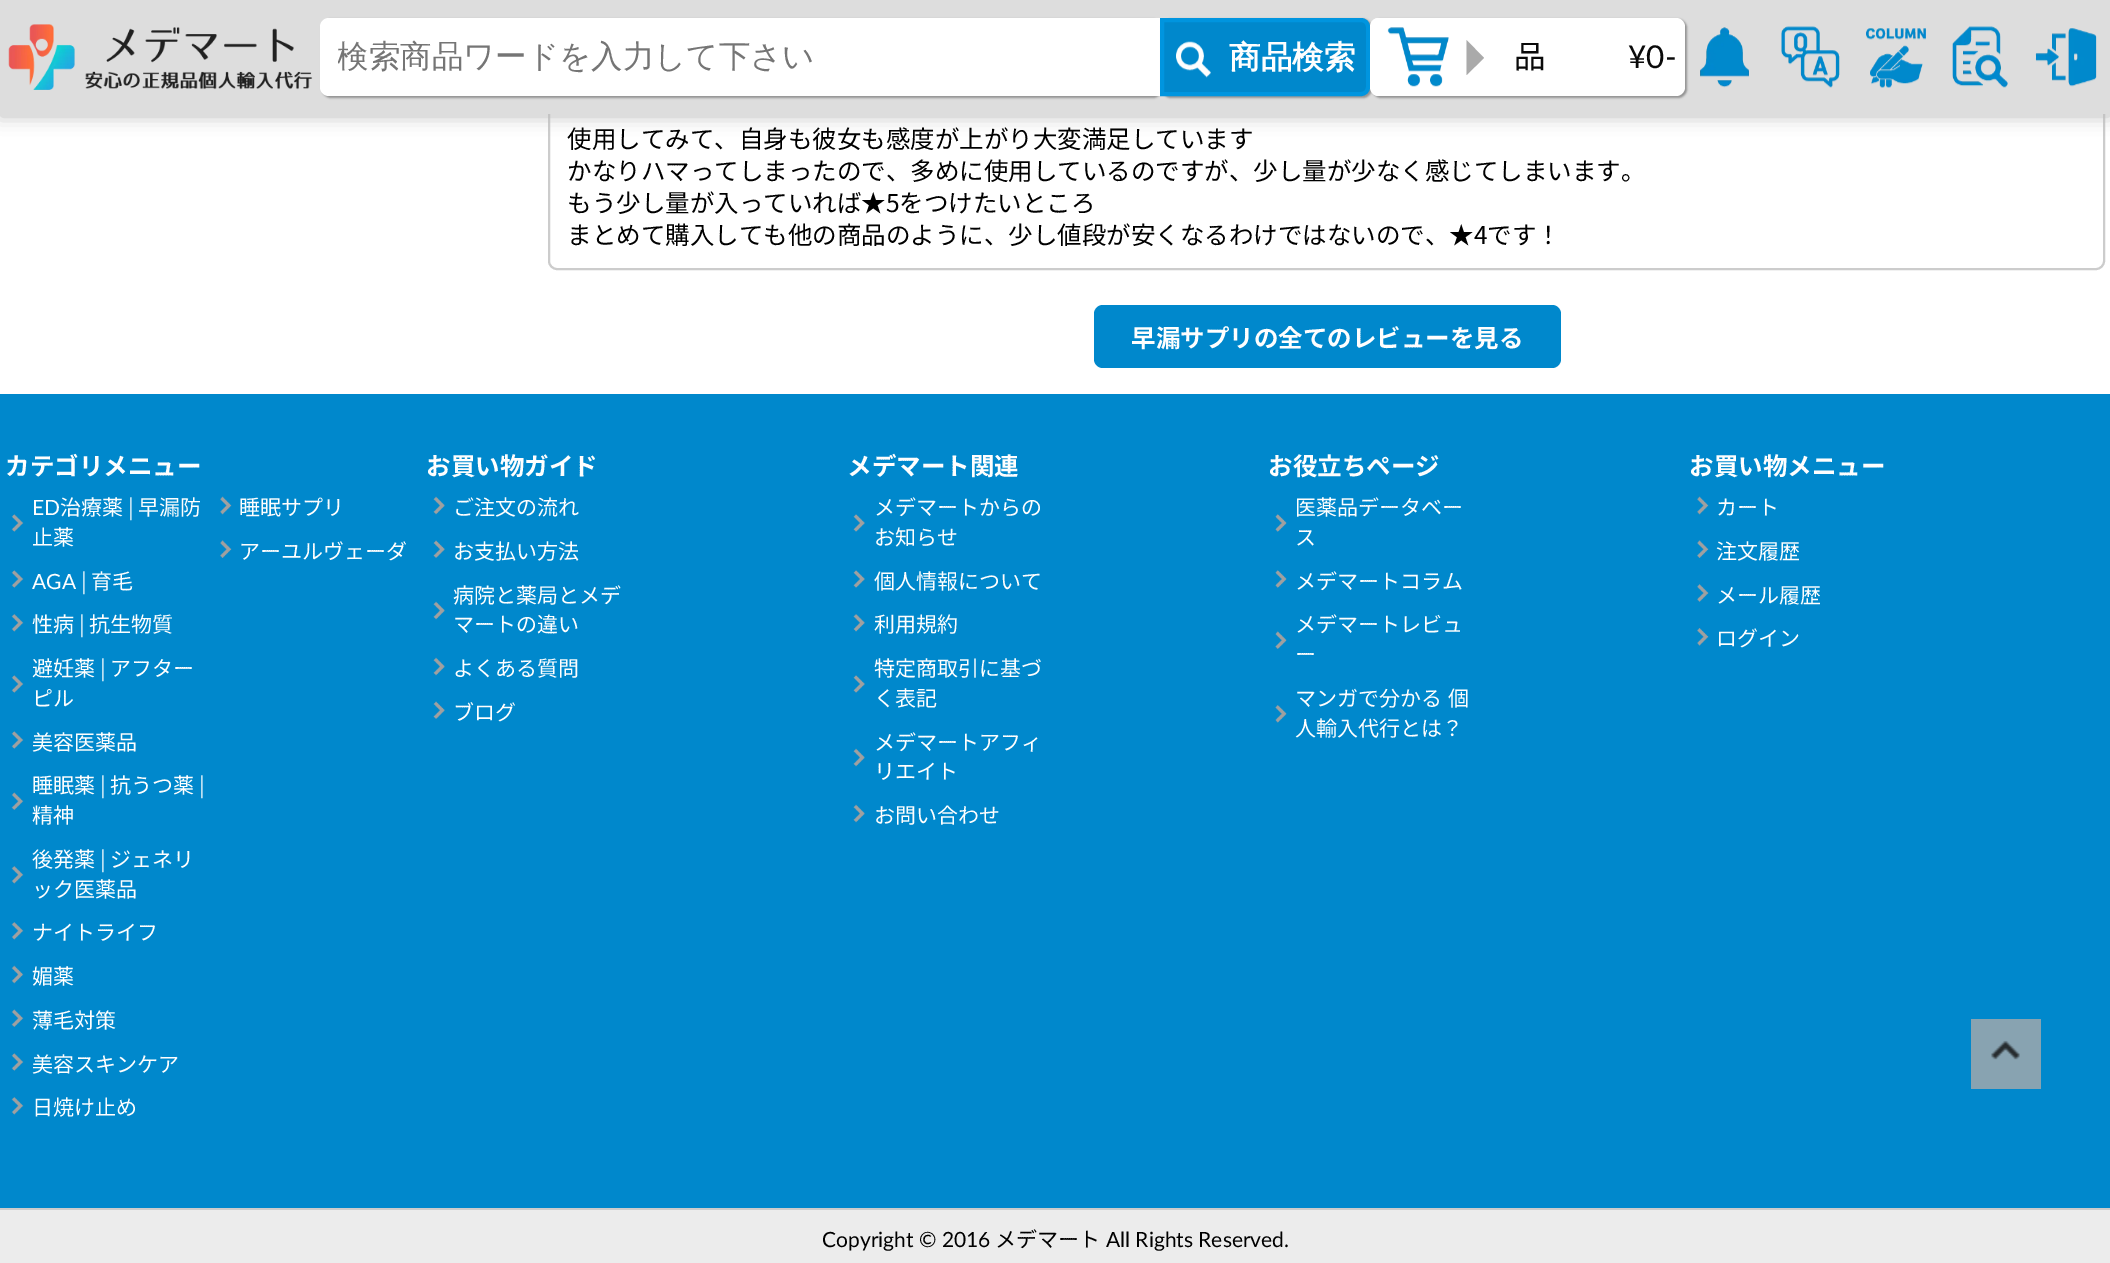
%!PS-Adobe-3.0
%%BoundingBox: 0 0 2110 1263
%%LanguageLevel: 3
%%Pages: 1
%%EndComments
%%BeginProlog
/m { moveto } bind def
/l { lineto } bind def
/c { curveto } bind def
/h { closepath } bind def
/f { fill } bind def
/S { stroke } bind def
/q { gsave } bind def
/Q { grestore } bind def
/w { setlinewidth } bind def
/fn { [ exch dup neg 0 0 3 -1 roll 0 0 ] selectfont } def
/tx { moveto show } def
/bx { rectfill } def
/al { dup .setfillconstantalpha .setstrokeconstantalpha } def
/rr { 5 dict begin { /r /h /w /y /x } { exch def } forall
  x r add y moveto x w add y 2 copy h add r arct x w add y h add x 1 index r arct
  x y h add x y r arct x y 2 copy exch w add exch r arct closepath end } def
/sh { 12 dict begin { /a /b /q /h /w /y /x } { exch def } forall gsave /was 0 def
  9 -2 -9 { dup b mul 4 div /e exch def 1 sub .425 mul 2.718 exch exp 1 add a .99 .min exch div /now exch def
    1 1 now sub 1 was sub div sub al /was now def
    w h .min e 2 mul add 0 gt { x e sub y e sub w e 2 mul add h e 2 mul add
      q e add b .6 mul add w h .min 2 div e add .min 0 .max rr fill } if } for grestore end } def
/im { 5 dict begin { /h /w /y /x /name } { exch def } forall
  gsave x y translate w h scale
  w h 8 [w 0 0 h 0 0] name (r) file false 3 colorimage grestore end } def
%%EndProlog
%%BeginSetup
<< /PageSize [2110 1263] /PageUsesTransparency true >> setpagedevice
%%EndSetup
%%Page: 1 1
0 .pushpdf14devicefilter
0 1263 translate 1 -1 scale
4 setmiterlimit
1 setgray
0 0 2110 1263 bx
0.8 setgray
2 w
549 -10 1555 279 8 rr S
0.733 setgray
0 2 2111 114 0 9 1 sh
0.867 setgray
0 0 2110 114 bx
(image0.raw) 8 24 305 66 im
0.573 setgray
322 19 840 79 9 1 1 sh
1 setgray
329 18 m 1160 18 l 1160 96 l 329 96 l 324 96 320 92 320 87 c 320 27 l 320 22 324 18 329 18 c h f
q
338 35 822 42 rectclip
/WenQuanYiZenHei-Medium 31.5 fn
0.459 setgray
(検索商品ワードを入力して下さい) 337 67 tx
Q
0.573 setgray
1372 19 315 79 9 1 1 sh
1 setgray
1370 18 315 78 9 rr f
0.573 setgray
1162 19 210 79 9 1 1 sh
0 0.533 0.8 setrgbcolor
1162 20 m 1361 20 l 1365 20 1368 23 1368 27 c 1368 87 l 1368 91 1365 94 1361 94 c 1162 94 l h q f Q
0 0.584 0.875 setrgbcolor
4 w
S
(image1.raw) 1176 41 35 37 im
/WenQuanYiZenHei-Bold 31.5 fn
0.996 setgray
(商品検索) 1229 68 tx
1 setgray
1370 18 97 78 9 rr f
(image2.raw) 1387 27 62 60 im
0.667 setgray
1466.5 75 m 1466.5 40 l 1484 58 l h f
/NotoSansJP-Regular 31.5 fn
0.039 setgray
(品) 1514 68 tx
/Lato-Regular 31.5 fn
(¥0-) 1628 68 tx
(image3.raw) 1700 27 49 61 im
(image4.raw) 1781 26 59 62 im
(image5.raw) 1866 28 60 60 im
(image6.raw) 1952 26 56 62 im
(image7.raw) 2035 28 62 59 im
/NotoSansJP-Regular 24.5 fn
0 setgray
(使用してみて、自身も彼女も感度が上がり大変満足しています) 567 148 tx
(かなりハマってしまったので、多めに使用しているのですが、少し量が少なく感じてしまいます。) 567 180 tx
(もう少し量が入っていれば★5をつけたいところ) 567 212 tx
(まとめて購入しても他の商品のように、少し値段が安くなるわけではないので、★4です！) 567 244 tx
0 0.533 0.8 setrgbcolor
1094 305 467 63 9 rr f
/NotoSansJP-Bold 24.5 fn
0.996 setgray
(早漏サプリの全てのレビューを見る) 1131 347 tx
0 0.533 0.8 setrgbcolor
0 394 2110 814 bx
0.996 setgray
(カテゴリメニュー) 5 475 tx
(image8.raw) 11 514 13 18 im
/Lato-Regular 21 fn
(ED) 32 515 tx
/NotoSansJP-Regular 21 fn
(治療薬) 60 515 tx
/Lato-Regular 21 fn
(│) 123 515 tx
/NotoSansJP-Regular 21 fn
(早漏防) 138 515 tx
(止薬) 32 545 tx
(image9.raw) 220 496 12 19 im
(睡眠サプリ) 239 515 tx
(image10.raw) 220 540 12 18 im
(アーユルヴェーダ) 239 559 tx
(image8.raw) 11 570 13 18 im
/Lato-Regular 21 fn
(AGA│) 32 589 tx
/NotoSansJP-Regular 21 fn
(育毛) 91 589 tx
(image11.raw) 11 614 13 18 im
(性病) 32 632 tx
/Lato-Regular 21 fn
(│) 74 632 tx
/NotoSansJP-Regular 21 fn
(抗生物質) 89 632 tx
(image8.raw) 11 675 13 18 im
(避妊薬) 32 676 tx
/Lato-Regular 21 fn
(│) 95 676 tx
/NotoSansJP-Regular 21 fn
(アフター) 110 676 tx
(ピル) 32 706 tx
(image8.raw) 11 731 13 18 im
(美容医薬品) 32 750 tx
(image12.raw) 11 792 13 18 im
(睡眠薬) 32 793 tx
/Lato-Regular 21 fn
(│) 95 793 tx
/NotoSansJP-Regular 21 fn
(抗うつ薬) 110 793 tx
/Lato-Regular 21 fn
(│) 194 793 tx
/NotoSansJP-Regular 21 fn
(精神) 32 823 tx
(image11.raw) 11 866 13 18 im
(後発薬) 32 867 tx
/Lato-Regular 21 fn
(│) 95 867 tx
/NotoSansJP-Regular 21 fn
(ジェネリ) 110 867 tx
(ック医薬品) 32 897 tx
(image11.raw) 11 922 13 18 im
(ナイトライフ) 32 940 tx
(image13.raw) 11 965 13 19 im
(媚薬) 32 984 tx
(image12.raw) 11 1009 13 18 im
(薄毛対策) 32 1028 tx
(image8.raw) 11 1053 13 18 im
(美容スキンケア) 32 1072 tx
(image11.raw) 11 1097 13 18 im
(日焼け止め) 32 1115 tx
/NotoSansJP-Bold 24.5 fn
(お買い物ガイド) 426 475 tx
(image14.raw) 433 496 12 19 im
/NotoSansJP-Regular 21 fn
(ご注文の流れ) 453 515 tx
(image15.raw) 433 540 12 18 im
(お支払い方法) 453 559 tx
(image14.raw) 433 601 12 19 im
(病院と薬局とメデ) 453 603 tx
(マートの違い) 453 632 tx
(image14.raw) 433 657 12 19 im
(よくある質問) 453 676 tx
(image15.raw) 433 701 12 18 im
(ブログ) 453 720 tx
/NotoSansJP-Bold 24.5 fn
(メデマート関連) 847 475 tx
(image16.raw) 853 514 12 18 im
/NotoSansJP-Regular 21 fn
(メデマートからの) 874 515 tx
(お知らせ) 874 545 tx
(image16.raw) 853 570 12 18 im
(個人情報について) 874 589 tx
(image17.raw) 853 614 12 18 im
(利用規約) 874 632 tx
(image16.raw) 853 675 12 18 im
(特定商取引に基づ) 874 676 tx
(く表記) 874 706 tx
(image14.raw) 853 748 12 19 im
(メデマートアフィ) 874 750 tx
(リエイト) 874 779 tx
(image14.raw) 853 804 12 19 im
(お問い合わせ) 874 823 tx
/NotoSansJP-Bold 24.5 fn
(お役立ちページ) 1268 475 tx
(image18.raw) 1275 514 12 18 im
/NotoSansJP-Regular 21 fn
(医薬品データベー) 1295 515 tx
(ス) 1295 545 tx
(image18.raw) 1275 570 12 18 im
(メデマートコラム) 1295 589 tx
(image19.raw) 1275 631 12 18 im
(メデマートレビュ) 1295 632 tx
(ー) 1295 662 tx
(image20.raw) 1275 705 12 18 im
1295 706 m 1 0 32 (マンガで分かる 個) widthshow
(人輸入代行とは？) 1295 736 tx
/NotoSansJP-Bold 24.5 fn
(お買い物メニュー) 1689 475 tx
(image9.raw) 1697 496 12 19 im
/NotoSansJP-Regular 21 fn
(カート) 1716 515 tx
(image10.raw) 1697 540 12 18 im
(注文履歴) 1716 559 tx
(image21.raw) 1697 584 12 18 im
(メール履歴) 1716 603 tx
(image22.raw) 1697 628 12 18 im
(ログイン) 1716 646 tx
0.533 0.639 0.694 setrgbcolor
1971 1019 70 70 bx
(image23.raw) 1991 1040 29 20 im
0.925 setgray
0 1210 2110 53 bx
0.8 setgray
0 1208 2110 2 bx
/Lato-Regular 21 fn
0 setgray
(Copyright © 2016) 822 1247 tx
/NotoSansJP-Regular 21 fn
(メデマート) 995 1247 tx
/Lato-Regular 21 fn
(All Rights Reserved.) 1106 1247 tx
.poppdf14devicefilter showpage
%%EOF
